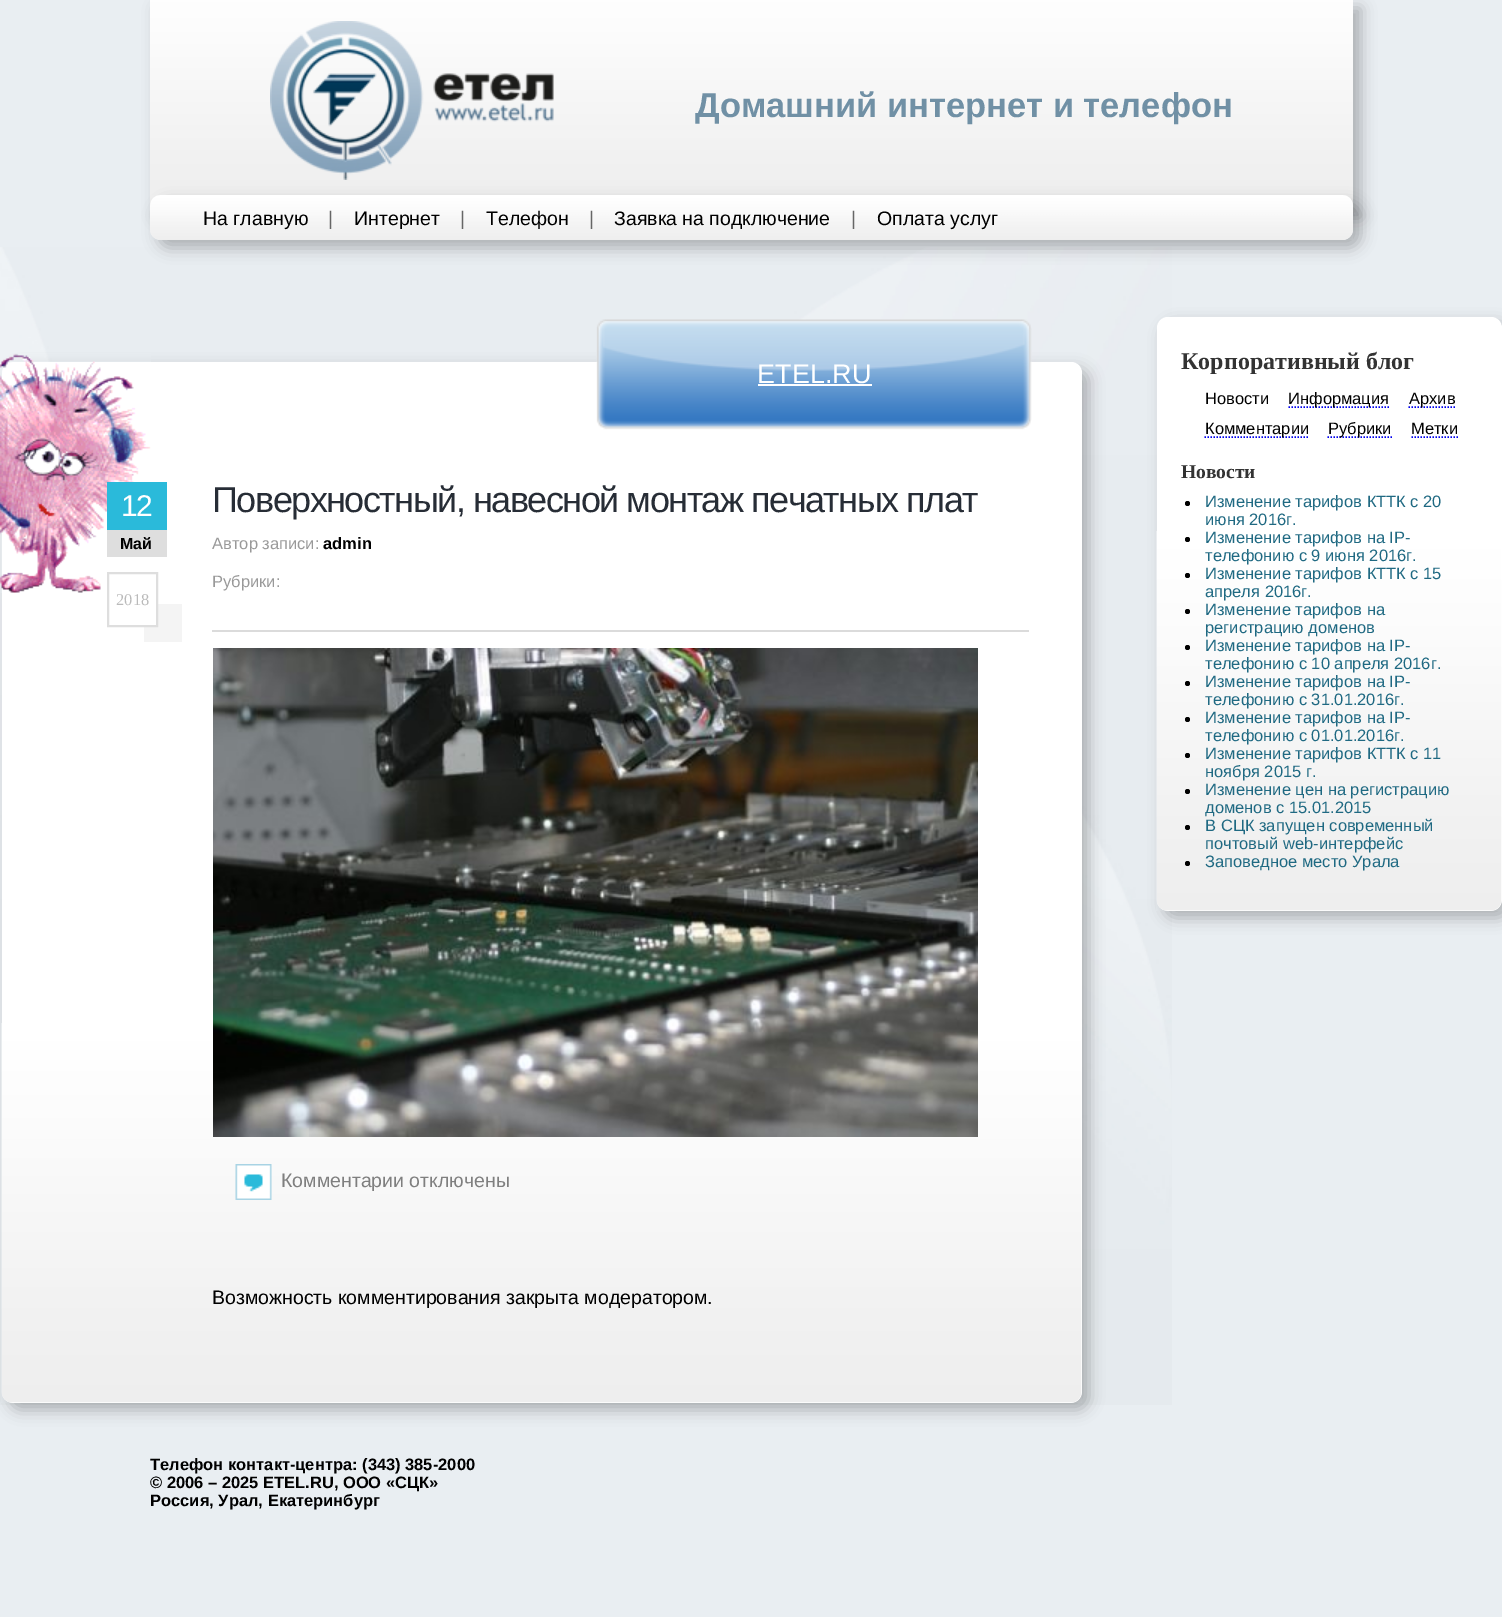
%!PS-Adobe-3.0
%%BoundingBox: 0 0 1502 1617
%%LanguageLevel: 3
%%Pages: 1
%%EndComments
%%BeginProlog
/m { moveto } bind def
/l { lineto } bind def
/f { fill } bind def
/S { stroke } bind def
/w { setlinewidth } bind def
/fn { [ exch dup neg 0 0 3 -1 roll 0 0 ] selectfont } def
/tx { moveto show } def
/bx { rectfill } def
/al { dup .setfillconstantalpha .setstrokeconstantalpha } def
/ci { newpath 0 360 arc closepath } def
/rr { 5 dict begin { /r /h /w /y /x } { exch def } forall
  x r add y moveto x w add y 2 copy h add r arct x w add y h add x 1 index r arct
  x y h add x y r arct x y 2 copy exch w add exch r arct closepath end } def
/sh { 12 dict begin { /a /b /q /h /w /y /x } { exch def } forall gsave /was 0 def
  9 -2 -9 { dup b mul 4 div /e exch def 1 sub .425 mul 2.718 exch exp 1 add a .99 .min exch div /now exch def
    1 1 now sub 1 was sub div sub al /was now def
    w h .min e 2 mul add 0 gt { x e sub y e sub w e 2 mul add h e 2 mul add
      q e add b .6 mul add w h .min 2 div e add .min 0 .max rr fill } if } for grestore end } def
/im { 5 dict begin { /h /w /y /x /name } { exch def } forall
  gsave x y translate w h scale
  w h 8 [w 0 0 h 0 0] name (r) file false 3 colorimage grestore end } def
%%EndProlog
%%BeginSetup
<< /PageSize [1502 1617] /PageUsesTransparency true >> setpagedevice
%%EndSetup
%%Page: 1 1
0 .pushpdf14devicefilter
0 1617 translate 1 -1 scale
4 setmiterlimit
0.914 0.933 0.949 setrgbcolor
0 0 1502 1617 bx
(image0.raw) 0 247 1172 1158 im
0 setgray
158 8 1203 210 0 7.5 0.25 sh
(image1.raw) 150 0 1203 206 im
(image2.raw) 270 21 284 159 im
/LiberationSans-Bold 34.5 fn
0.439 0.565 0.647 setrgbcolor
(Домашний интернет и телефон) 695 117 tx
0 setgray
158 203 1203 45 11 7.5 0.25 sh
0.937 setgray
150 195 1203 45 11 rr f
(image3.raw) 150 195 1203 45 im
/LiberationSans-Regular 19.5 fn
0 setgray
(На главную) 203 225 tx
0.4 setgray
(|) 328 225 tx
0 setgray
(Интернет) 354 225 tx
0.4 setgray
(|) 460 225 tx
0 setgray
(Телефон) 486 225 tx
0.4 setgray
(|) 589 225 tx
0 setgray
(Заявка на подключение) 614 225 tx
0.4 setgray
(|) 851 225 tx
0 setgray
(Оплата услуг) 877 225 tx
9 369 1080 1041 11 7.5 0.25 sh
1 setgray
2 362 1080 1041 11 rr f
(image4.raw) 1 1023 1081 380 im
(image5.raw) 0 353 151 240 im
(image6.raw) 596 319 436 111 im
/LiberationSans-Regular 27 fn
(ETEL.RU) 757 383 tx
758 384 114 2 bx
0.957 setgray
144 604 38 38 bx
0.165 0.729 0.855 setrgbcolor
107 482 60 48 bx
/LiberationSans-Regular 30 fn
1 setgray
121 516 m -1.5 0 (12) ashow
0.871 setgray
107 530 60 27 bx
/LiberationSans-Bold 16 fn
0 setgray
(Май) 120 549 tx
1 setgray
144 604 12 21 bx
0.871 setgray
2 w
108 573 49 53 rectstroke
/LiberationSerif-Regular 16.5 fn
0.729 setgray
(2018) 116 605 tx
/LiberationSans-Regular 36 fn
0.153 0.176 0.212 setrgbcolor
212 512 m -1.5 0 (Поверхностный, навесной монтаж печатных плат) ashow
/LiberationSans-Regular 16.5 fn
0.6 setgray
(Автор записи:) 212 549 tx
/LiberationSans-Bold 16.5 fn
0 setgray
(admin) 323 549 tx
/LiberationSans-Regular 16.5 fn
0.6 setgray
(Рубрики:) 212 587 tx
0.859 setgray
212 630 817 2 bx
(image7.raw) 213 648 765 489 im
(image8.raw) 235 1164 37 36 im
/LiberationSans-Regular 19.5 fn
0.498 setgray
(Комментарии отключены) 281 1187 tx
0 setgray
(Возможность комментирования закрыта модератором.) 212 1304 tx
1164 324 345 594 11 7.5 0.25 sh
1 setgray
1157 317 345 594 11 rr f
(image9.raw) 1156 531 346 380 im
/LiberationSerif-Bold 24 fn
0.2 setgray
(Корпоративный блог) 1181 369 tx
/LiberationSans-Regular 16.5 fn
0 setgray
(Новости) 1205 404 tx
0 0 0.933 setrgbcolor
1.5 w
[1.5 1.5] 0 setdash
1288.5 407 m 1389 407 l S
0 setgray
(Информация) 1288 404 tx
0 0 0.933 setrgbcolor
1408.5 407 m 1455 407 l S
0 setgray
(Архив) 1409 404 tx
0 0 0.933 setrgbcolor
1204.5 437 m 1308 437 l S
0 setgray
(Комментарии) 1205 434 tx
0 0 0.933 setrgbcolor
1327.5 437 m 1392 437 l S
0 setgray
(Рубрики) 1328 434 tx
(Метки) 1411 434 tx
0 0 0.933 setrgbcolor
1411.5 437 m 1458 437 l S
/LiberationSerif-Bold 19.5 fn
0.2 setgray
(Новости) 1181 478 tx
0 setgray
1187.5 503.5 2.5 ci f
/LiberationSans-Regular 16.5 fn
0.122 0.412 0.51 setrgbcolor
(Изменение тарифов КТТК с 20) 1205 507 tx
(июня 2016г.) 1205 525 tx
0 setgray
1187.5 539.5 2.5 ci f
0.122 0.412 0.51 setrgbcolor
(Изменение тарифов на IP-) 1205 543 tx
(телефонию с 9 июня 2016г.) 1205 561 tx
0 setgray
1187.5 575.5 2.5 ci f
0.122 0.412 0.51 setrgbcolor
(Изменение тарифов КТТК с 15) 1205 579 tx
(апреля 2016г.) 1205 597 tx
0 setgray
1187.5 611.5 2.5 ci f
0.122 0.412 0.51 setrgbcolor
(Изменение тарифов на) 1205 615 tx
(регистрацию доменов) 1205 633 tx
0 setgray
1187.5 647.5 2.5 ci f
0.122 0.412 0.51 setrgbcolor
(Изменение тарифов на IP-) 1205 651 tx
(телефонию с 10 апреля 2016г.) 1205 669 tx
0 setgray
1187.5 683.5 2.5 ci f
0.122 0.412 0.51 setrgbcolor
(Изменение тарифов на IP-) 1205 687 tx
(телефонию с 31.01.2016г.) 1205 705 tx
0 setgray
1187.5 719.5 2.5 ci f
0.122 0.412 0.51 setrgbcolor
(Изменение тарифов на IP-) 1205 723 tx
(телефонию с 01.01.2016г.) 1205 741 tx
0 setgray
1187.5 755.5 2.5 ci f
0.122 0.412 0.51 setrgbcolor
(Изменение тарифов КТТК с 11) 1205 759 tx
(ноября 2015 г.) 1205 777 tx
0 setgray
1187.5 791.5 2.5 ci f
0.122 0.412 0.51 setrgbcolor
(Изменение цен на регистрацию) 1205 795 tx
(доменов с 15.01.2015) 1205 813 tx
0 setgray
1187.5 827.5 2.5 ci f
0.122 0.412 0.51 setrgbcolor
(В СЦК запущен современный) 1205 831 tx
(почтовый web-интерфейс) 1205 849 tx
0 setgray
1187.5 863.5 2.5 ci f
0.122 0.412 0.51 setrgbcolor
(Заповедное место Урала) 1205 867 tx
/LiberationSans-Bold 16.5 fn
0 setgray
(Телефон контакт-центра: \(343\) 385-2000) 150 1470 tx
(© 2006 – 2025 ETEL.RU, ООО «СЦК») 150 1488 tx
(Россия, Урал, Екатеринбург) 150 1506 tx
.poppdf14devicefilter showpage
%%EOF
